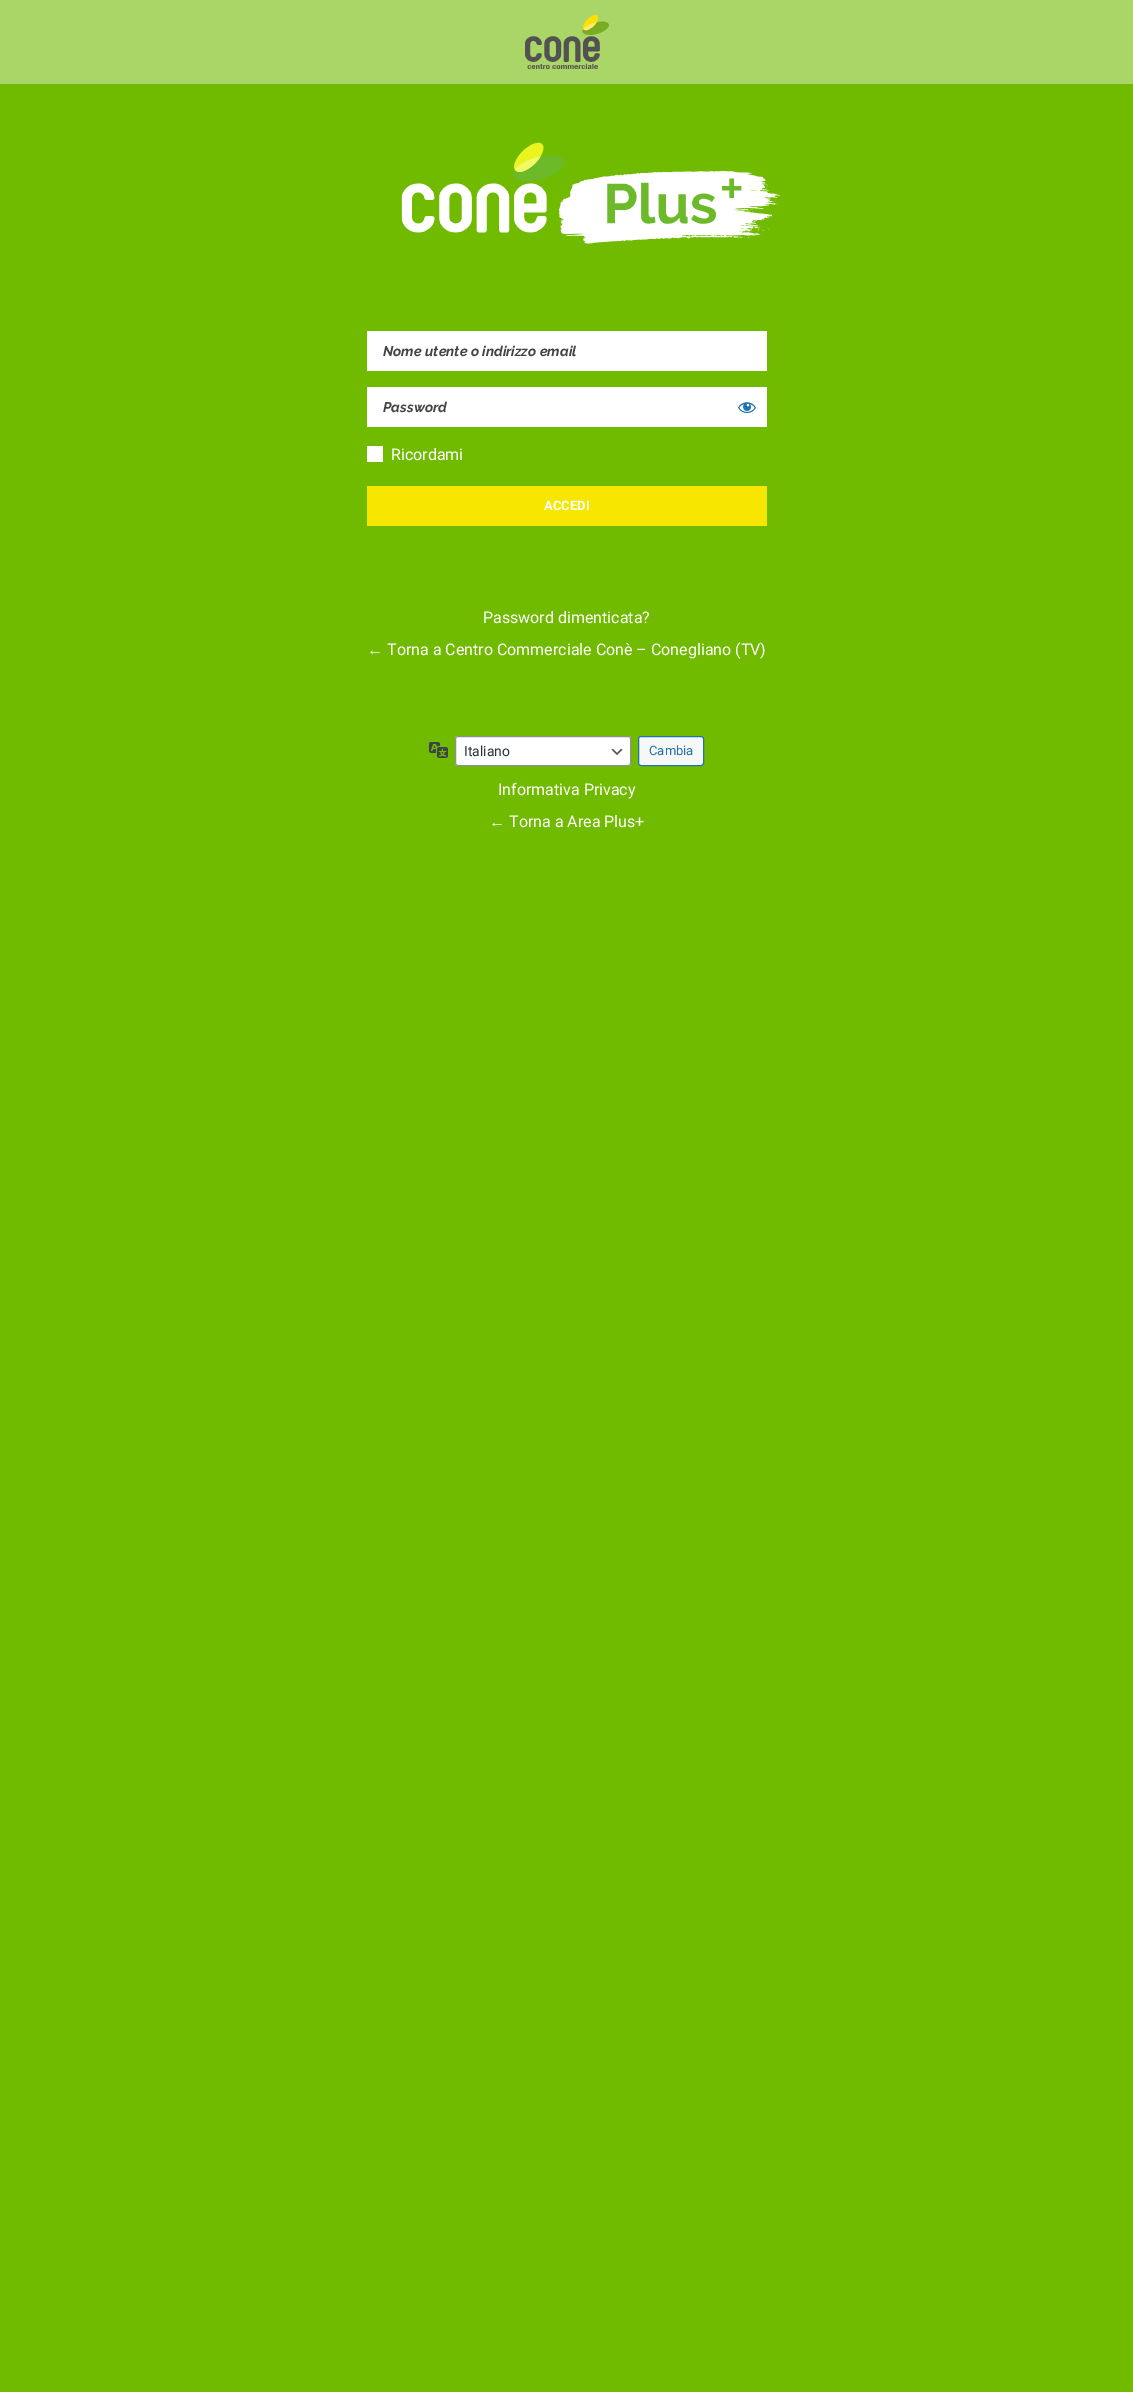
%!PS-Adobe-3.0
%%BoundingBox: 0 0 1133 2392
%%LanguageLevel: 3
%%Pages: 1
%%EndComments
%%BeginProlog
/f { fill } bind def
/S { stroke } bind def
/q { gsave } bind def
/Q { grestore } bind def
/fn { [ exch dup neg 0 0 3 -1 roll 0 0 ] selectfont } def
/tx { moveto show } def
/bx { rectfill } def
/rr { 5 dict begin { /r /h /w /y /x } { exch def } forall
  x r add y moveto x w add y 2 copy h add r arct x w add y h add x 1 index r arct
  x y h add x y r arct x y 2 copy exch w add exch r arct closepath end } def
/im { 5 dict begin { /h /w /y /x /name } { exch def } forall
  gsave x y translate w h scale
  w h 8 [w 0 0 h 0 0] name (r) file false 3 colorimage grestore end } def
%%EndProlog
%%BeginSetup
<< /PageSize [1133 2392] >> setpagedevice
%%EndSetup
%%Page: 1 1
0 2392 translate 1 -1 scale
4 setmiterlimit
0.439 0.729 0 setrgbcolor
0 0 1133 2392 bx
0.663 0.839 0.4 setrgbcolor
0 0 1133 84 bx
(image0.raw) 525 15 84 54 im
(image1.raw) 401 142 379 102 im
1 setgray
367 331 400 40 bx
/Raleway-BoldItalic 14 fn
0.271 0.259 0.267 setrgbcolor
(Nome utente o indirizzo email) 383 356 tx
1 setgray
367 387 400 40 bx
0.271 0.259 0.267 setrgbcolor
(Password) 383 412 tx
(image2.raw) 738 402 18 12 im
1 setgray
367 446 16 16 bx
/Roboto-Regular 16 fn
(Ricordami) 391 460 tx
0.965 0.902 0 setrgbcolor
367 486 400 40 bx
/Roboto-Bold 13 fn
1 setgray
(ACCEDI) 544 510 tx
/Roboto-Regular 16 fn
(Password dimenticata?) 483 623 tx
/LiberationSans-Regular 16 fn
(←) 367 655 tx
/Roboto-Regular 16 fn
(Torna a Centro Commerciale Conè – Conegliano \(TV\)) 387 655 tx
(image3.raw) 429 742 19 16 im
455 736 176 30 3 rr f
(image4.raw) 611 748 12 7 im
0.549 0.561 0.58 setrgbcolor
455.5 736.5 175 29 2.5 rr S
/Roboto-Regular 14 fn
0.173 0.2 0.22 setrgbcolor
(Italiano) 464 756 tx
0.965 0.969 0.969 setrgbcolor
638.5 736.5 65 29 2.5 rr q f Q
0.133 0.443 0.694 setrgbcolor
S
/Roboto-Regular 13 fn
(Cambia) 649 755 tx
/Roboto-Regular 16 fn
1 setgray
(Informativa Privacy) 498 795 tx
/LiberationSans-Regular 16 fn
(←) 489 827 tx
/Roboto-Regular 16 fn
(Torna a Area Plus+) 509 827 tx
showpage
%%EOF
